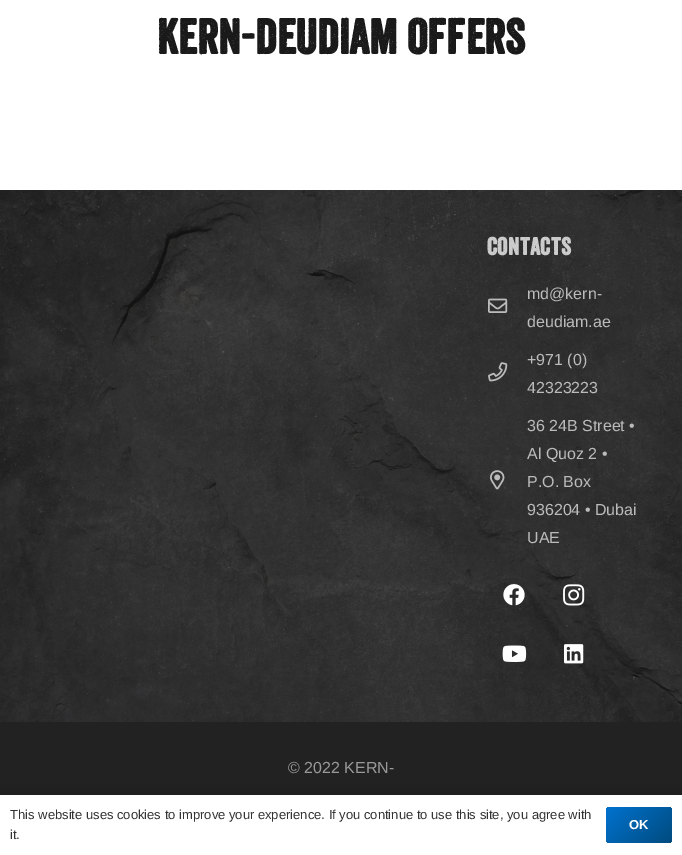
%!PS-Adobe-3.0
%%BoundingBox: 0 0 682 855
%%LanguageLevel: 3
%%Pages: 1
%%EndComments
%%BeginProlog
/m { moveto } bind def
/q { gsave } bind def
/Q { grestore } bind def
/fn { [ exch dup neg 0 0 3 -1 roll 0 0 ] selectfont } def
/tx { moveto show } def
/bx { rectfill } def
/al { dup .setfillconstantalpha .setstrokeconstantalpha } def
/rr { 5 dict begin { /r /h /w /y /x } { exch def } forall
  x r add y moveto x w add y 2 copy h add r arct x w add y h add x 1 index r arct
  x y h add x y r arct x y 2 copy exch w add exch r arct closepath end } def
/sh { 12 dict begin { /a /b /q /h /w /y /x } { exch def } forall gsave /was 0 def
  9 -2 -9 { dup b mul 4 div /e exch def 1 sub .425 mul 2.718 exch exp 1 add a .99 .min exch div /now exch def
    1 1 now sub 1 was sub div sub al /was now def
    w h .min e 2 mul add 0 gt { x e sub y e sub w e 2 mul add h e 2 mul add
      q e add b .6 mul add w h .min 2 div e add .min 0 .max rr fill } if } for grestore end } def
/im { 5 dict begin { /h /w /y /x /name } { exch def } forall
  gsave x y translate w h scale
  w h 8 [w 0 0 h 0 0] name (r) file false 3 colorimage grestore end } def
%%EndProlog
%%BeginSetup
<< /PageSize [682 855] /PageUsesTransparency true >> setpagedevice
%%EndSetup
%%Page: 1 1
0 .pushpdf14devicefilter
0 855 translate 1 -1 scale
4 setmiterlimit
1 setgray
0 0 682 855 bx
/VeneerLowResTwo-Bold 48 fn
0.102 setgray
(KERN-DEUDIAM Offers) 157 54 tx
(image0.raw) 0 190 682 532 im
/VeneerLowResTwo-Bold 24 fn
0.8 setgray
487 255 m 0.5 0 (Contacts) ashow
(image1.raw) 488 298 20 15 im
/LiberationSans-Regular 16 fn
0.733 setgray
(md@kern-) 527 299 tx
(deudiam.ae) 527 327 tx
(image2.raw) 488 362 20 20 im
(+971 \(0\)) 527 365 tx
(42323223) 527 393 tx
(image3.raw) 490 470 15 20 im
(36 24B Street •) 527 431 tx
(Al Quoz 2 •) 527 459 tx
(P.O. Box) 527 487 tx
(936204 • Dubai) 527 515 tx
(UAE) 527 543 tx
(image4.raw) 503 584 22 22 im
(image5.raw) 563 584 22 22 im
(image6.raw) 502 645 25 17 im
(image7.raw) 564 644 20 20 im
0.133 setgray
0 722 682 73 bx
0.6 setgray
(© 2022 KERN-) 288 773 tx
0 setgray
0 790 682 60 0 7.5 0.15 sh
1 setgray
0 795 682 60 bx
/LiberationSans-Regular 13 fn
0.2 setgray
(This website uses cookies to improve your experience. If you continue to use this site, you agree with) 10 819 tx
(it.) 10 839 tx
q 606 807 66 36 4 rr clip newpath
<< /ShadingType 2 /ColorSpace /DeviceRGB /Coords [614 800 665 851] /Extend [true true] /Function << /FunctionType 2 /Domain [0 1] /C0 [0 0.447 0.808] /C1 [0 0.294 0.49] /N 1 >> >> shfill Q
/LiberationSans-Bold 13 fn
1 setgray
(OK) 629 829 tx
.poppdf14devicefilter showpage
%%EOF
